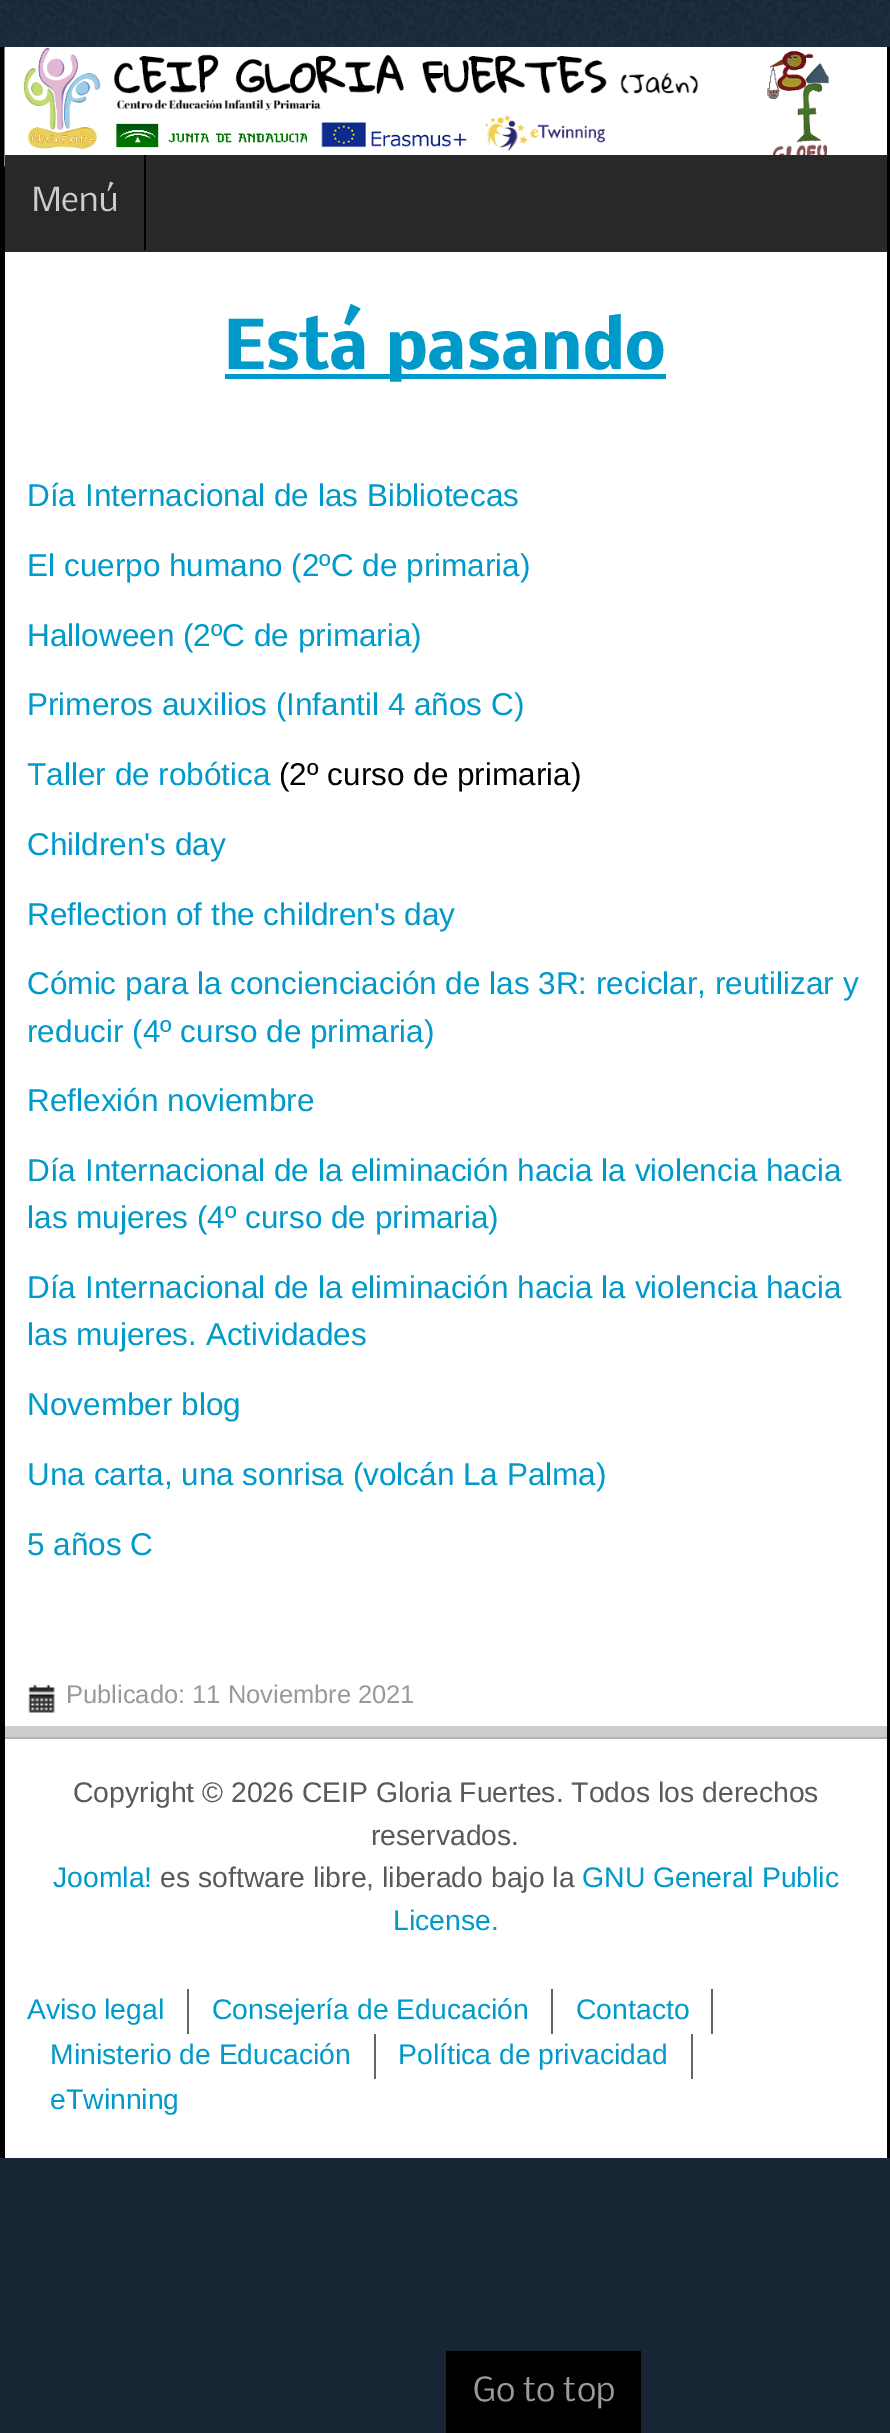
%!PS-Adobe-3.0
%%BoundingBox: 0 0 890 2433
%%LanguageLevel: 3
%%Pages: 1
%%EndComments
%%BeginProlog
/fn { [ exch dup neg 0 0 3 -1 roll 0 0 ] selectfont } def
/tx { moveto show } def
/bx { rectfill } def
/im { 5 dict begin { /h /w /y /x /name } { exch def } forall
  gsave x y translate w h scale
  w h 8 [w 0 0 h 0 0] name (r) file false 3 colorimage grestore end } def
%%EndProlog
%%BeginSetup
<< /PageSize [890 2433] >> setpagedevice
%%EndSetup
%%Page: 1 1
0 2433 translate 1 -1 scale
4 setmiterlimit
0.09 0.145 0.204 setrgbcolor
0 0 890 2433 bx
(image0.raw) 0 0 890 47 im
1 setgray
5 47 882 2111 bx
0 setgray
887 47 3 2111 bx
0 47 5 2111 bx
(image1.raw) 4 47 825 120 im
0.157 setgray
5 155 882 97 bx
0 setgray
144 155 2 95 bx
/Nobile-Regular 31.5 fn
0.8 setgray
(Menú) 32 211 tx
5 1726 882 11 bx
0 0.604 0.792 setrgbcolor
225 374 441 5 bx
/Nobile-Bold 63 fn
(Está pasando) 224 369 tx
/LiberationSans-Regular 31.5 fn
(Día Internacional de las Bibliotecas) 27 506 tx
(El cuerpo humano \(2ºC de primaria\)) 27 576 tx
(Halloween \(2ºC de primaria\)) 27 646 tx
(Primeros auxilios \(Infantil 4 años C\)) 27 715 tx
(Taller de robótica) 27 785 tx
0 setgray
(\(2º curso de primaria\)) 279 785 tx
0 0.604 0.792 setrgbcolor
(Children's day) 27 855 tx
(Reflection of the children's day) 27 925 tx
(Cómic para la concienciación de las 3R: reciclar, reutilizar y) 27 994 tx
(reducir \(4º curso de primaria\)) 27 1042 tx
(Reflexión noviembre) 27 1111 tx
(Día Internacional de la eliminación hacia la violencia hacia) 27 1181 tx
(las mujeres \(4º curso de primaria\)) 27 1228 tx
(Día Internacional de la eliminación hacia la violencia hacia) 27 1298 tx
(las mujeres. Actividades) 27 1345 tx
(November blog) 27 1415 tx
(Una carta, una sonrisa \(volcán La Palma\)) 27 1485 tx
(5 años C) 27 1555 tx
(image2.raw) 28 1684 27 29 im
/LiberationSans-Regular 25.5 fn
0.6 setgray
(Publicado: 11 Noviembre 2021) 66 1703 tx
0.702 setgray
5 1737 882 2 bx
/LiberationSans-Regular 28.35 fn
0.349 setgray
(Copyright © 2026 CEIP Gloria Fuertes. Todos los derechos) 73 1802 tx
(reservados.) 371 1845 tx
0 0.604 0.792 setrgbcolor
(Joomla!) 53 1887 tx
0.349 setgray
(es software libre, liberado bajo la) 160 1887 tx
0 0.604 0.792 setrgbcolor
(GNU General Public) 582 1887 tx
(License.) 393 1930 tx
0.4 setgray
187 1989 2 45 bx
0 0.604 0.792 setrgbcolor
(Aviso legal) 27 2019 tx
0.4 setgray
551 1989 2 45 bx
0 0.604 0.792 setrgbcolor
(Consejería de Educación) 212 2019 tx
0.4 setgray
711 1989 2 45 bx
0 0.604 0.792 setrgbcolor
(Contacto) 576 2019 tx
0.4 setgray
374 2034 2 45 bx
0 0.604 0.792 setrgbcolor
(Ministerio de Educación) 50 2064 tx
0.4 setgray
691 2034 2 45 bx
0 0.604 0.792 setrgbcolor
(Política de privacidad) 398 2064 tx
(eTwinning) 50 2109 tx
0 setgray
446 2351 195 82 bx
/Nobile-Regular 31.5 fn
0.6 setgray
(Go to top) 473 2401 tx
showpage
%%EOF
